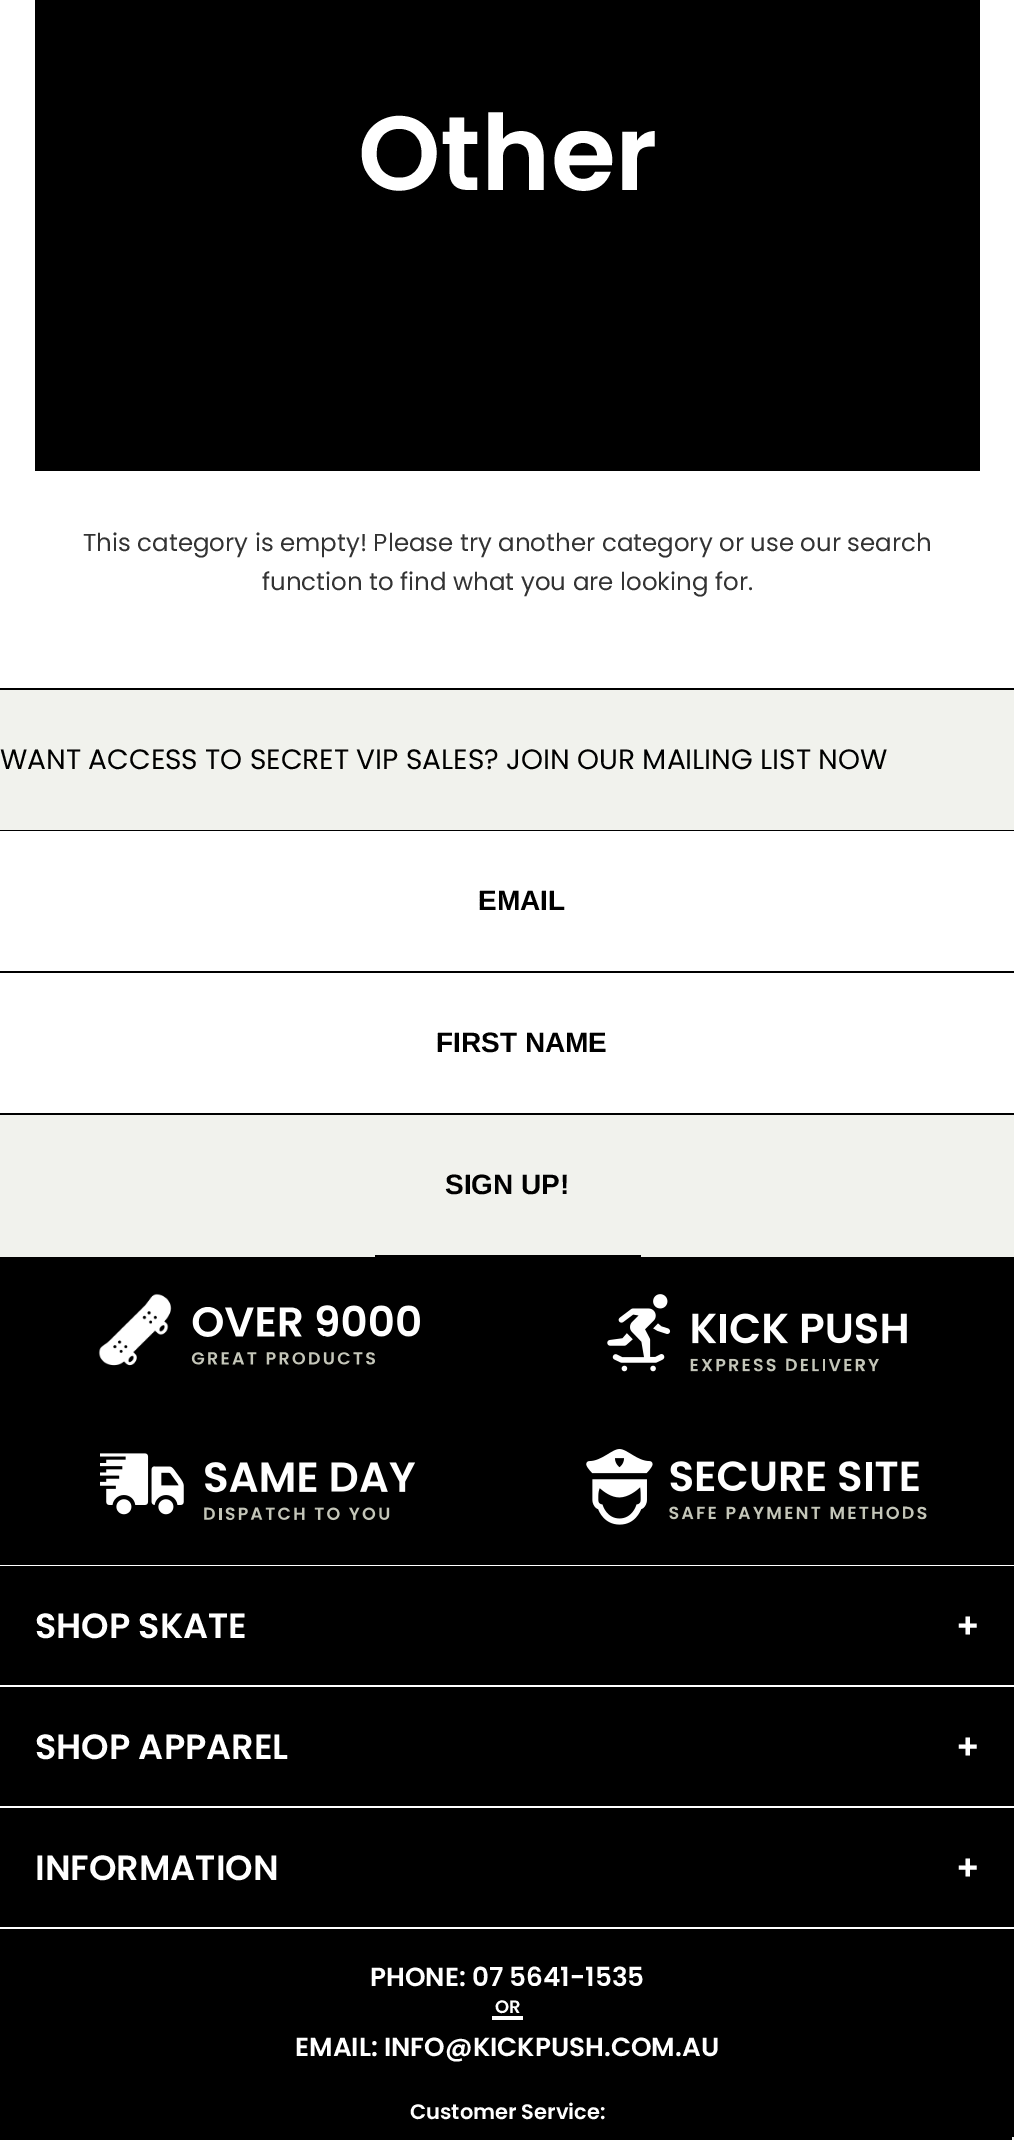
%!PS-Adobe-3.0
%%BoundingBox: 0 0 1014 2140
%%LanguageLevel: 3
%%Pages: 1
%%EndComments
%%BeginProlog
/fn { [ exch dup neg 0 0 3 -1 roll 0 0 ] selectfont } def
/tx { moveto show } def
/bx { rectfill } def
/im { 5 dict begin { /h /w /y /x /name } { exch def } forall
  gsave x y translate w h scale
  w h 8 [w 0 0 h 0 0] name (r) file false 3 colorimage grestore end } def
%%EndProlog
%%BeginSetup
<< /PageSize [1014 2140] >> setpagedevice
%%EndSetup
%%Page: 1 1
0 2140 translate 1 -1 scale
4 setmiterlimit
1 setgray
0 0 1014 2140 bx
0 setgray
35 0 945 471 bx
/Poppins-SemiBold 105 fn
1 setgray
(Other) 358 190 tx
/Poppins-Regular 24.5 fn
0.2 setgray
(This category is empty! Please try another category or use our search) 83 551 tx
(function to find what you are looking for.) 262 590 tx
0.945 0.949 0.929 setrgbcolor
0 690 1014 567 bx
0 setgray
0 688 1014 2 bx
0 830 1014 1 bx
/Poppins-Regular 28 fn
(WANT ACCESS TO SECRET VIP SALES? JOIN OUR MAILING LIST NOW) 0 769 tx
0 971 1014 2 bx
1 setgray
0 831 1014 140 bx
/LiberationSans-Bold 28 fn
0 setgray
(EMAIL) 478 910 tx
0 1113 1014 2 bx
1 setgray
0 973 1014 140 bx
0 setgray
(FIRST NAME) 436 1052 tx
375 1255 266 2 bx
(SIGN UP!) 445 1194 tx
0 1257 1014 308 bx
(image0.raw) 98 1293 322 73 im
(image1.raw) 607 1294 300 78 im
(image2.raw) 100 1453 316 68 im
(image3.raw) 586 1449 341 76 im
0 1566 1014 574 bx
1 setgray
0 1685 1014 2 bx
/Poppins-SemiBold 35 fn
(SHOP SKATE) 35 1638 tx
(+) 956 1638 tx
0 1806 1014 2 bx
(SHOP APPAREL) 35 1759 tx
(+) 956 1759 tx
0 1927 1014 2 bx
(INFORMATION) 35 1880 tx
(+) 956 1880 tx
/Poppins-SemiBold 26.25 fn
(PHONE: 07 5641-1535) 370 1986 tx
492 2016 31 4 bx
/Poppins-SemiBold 18 fn
(OR) 495 2013 tx
/Poppins-SemiBold 26.25 fn
(EMAIL: INFO@KICKPUSH.COM.AU) 295 2056 tx
/Poppins-SemiBold 21 fn
(Customer Service:) 410 2119 tx
0.961 setgray
1012 2137 2 3 bx
showpage
%%EOF
